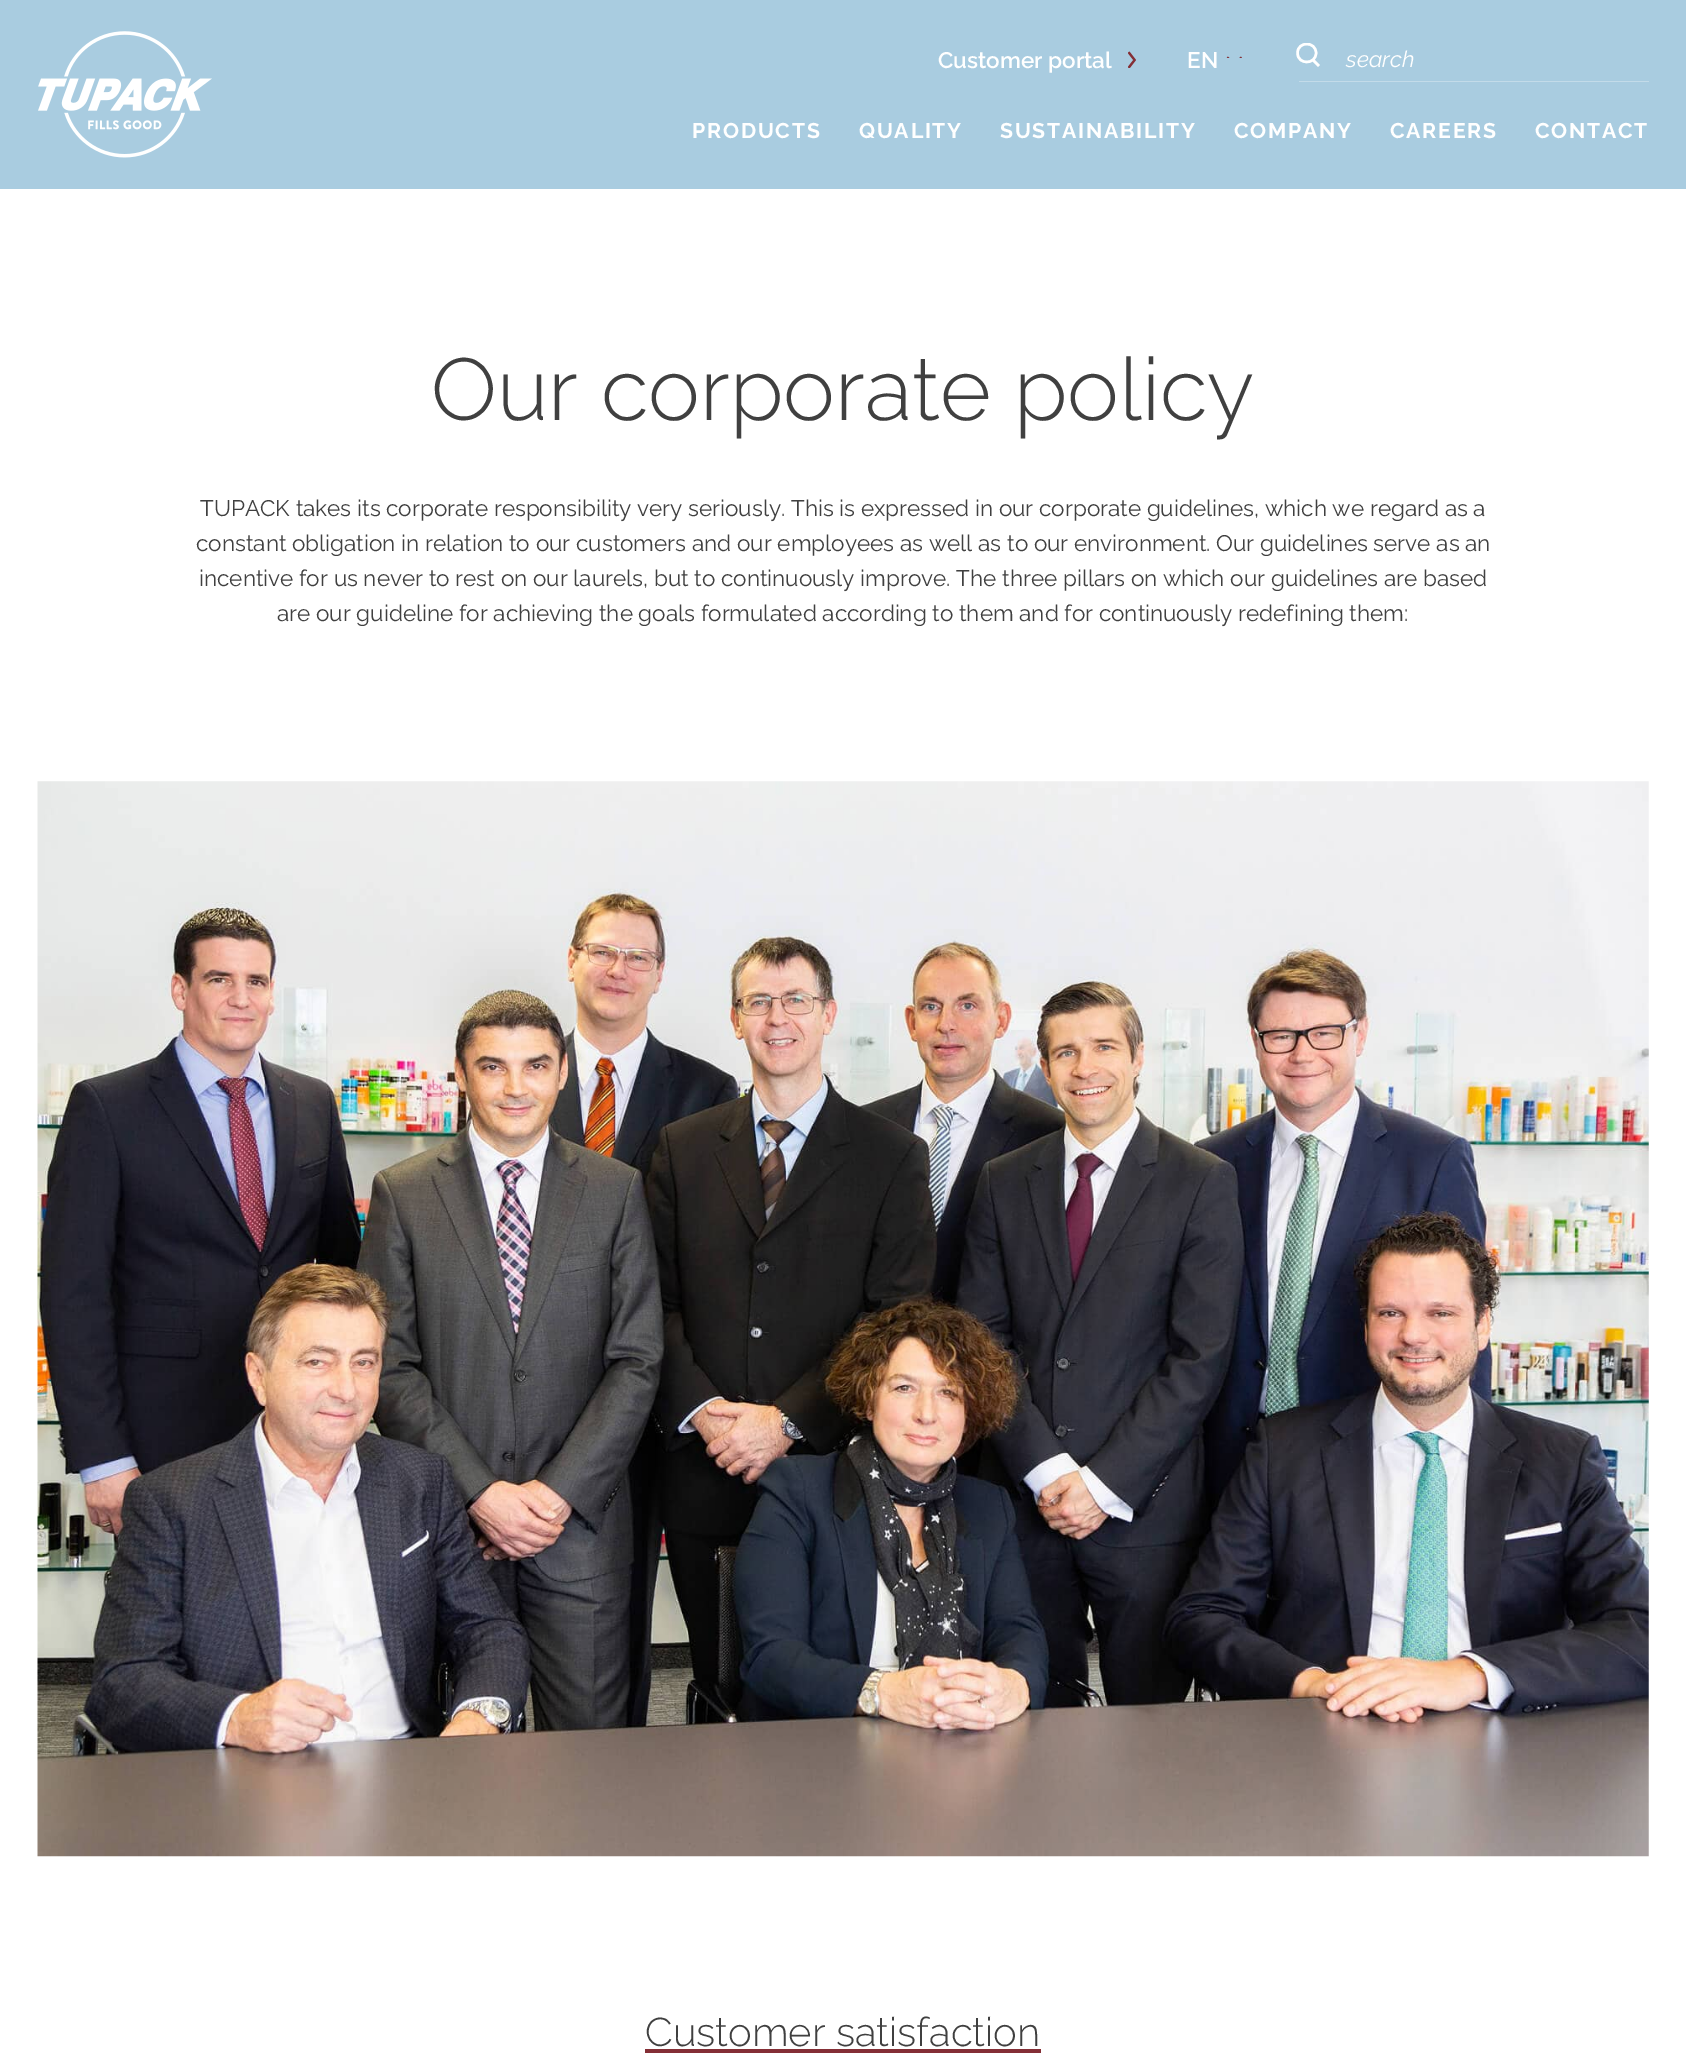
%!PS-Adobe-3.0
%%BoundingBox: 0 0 1686 2054
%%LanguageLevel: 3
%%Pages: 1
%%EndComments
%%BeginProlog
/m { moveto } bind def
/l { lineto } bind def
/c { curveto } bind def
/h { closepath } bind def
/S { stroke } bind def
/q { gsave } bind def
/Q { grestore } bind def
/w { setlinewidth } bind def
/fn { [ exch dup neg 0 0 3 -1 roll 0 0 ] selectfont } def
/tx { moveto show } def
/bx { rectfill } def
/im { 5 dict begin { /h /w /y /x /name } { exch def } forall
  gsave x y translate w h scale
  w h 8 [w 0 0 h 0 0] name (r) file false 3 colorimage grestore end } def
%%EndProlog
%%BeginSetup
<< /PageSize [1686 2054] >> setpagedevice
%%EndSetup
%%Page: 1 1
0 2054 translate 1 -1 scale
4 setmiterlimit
1 setgray
0 0 1686 2054 bx
0.663 0.8 0.878 setrgbcolor
0 0 1686 189 bx
(image0.raw) 38 31 174 127 im
/Raleway-SemiBold 22.5 fn
1 setgray
(Customer portal) 938 68 tx
(image1.raw) 1128 51 8 17 im
(EN) 1187 68 tx
(image2.raw) 1226 56 16 2 im
q
1296 43 24 25 rectclip
2.5 w
1313 60 m 1319 66 l h 1297.5 53 m 1297.5 41 1316 41 1316 53 c 1316 65 1297.5 65 1297.5 53 c h S
Q
/Raleway-ThinItalic 22.5 fn
(search) 1346 67 tx
0.765 0.859 0.914 setrgbcolor
1299 81 350 1 bx
/Raleway-Bold 21.25 fn
1 setgray
692 138 m 1.75 0 (PRODUCTS) ashow
859 138 m 1.75 0 (QUALITY) ashow
1000 138 m 1.75 0 (SUSTAINABILITY) ashow
1234 138 m 1.75 0 (COMPANY) ashow
1390 138 m 1.75 0 (CAREERS) ashow
1535 138 m 1.75 0 (CONTACT) ashow
/Raleway-Light 87.5 fn
0.251 setgray
(Our corporate policy) 431 420 tx
/Raleway-Regular 22.5 fn
(TUPACK takes its corporate responsibility very seriously. This is expressed in our corporate guidelines, which we regard as a) 200 516 tx
(constant obligation in relation to our customers and our employees as well as to our environment. Our guidelines serve as an) 196 551 tx
(incentive for us never to rest on our laurels, but to continuously improve. The three pillars on which our guidelines are based) 199 586 tx
(are our guideline for achieving the goals formulated according to them and for continuously redefining them:) 277 621 tx
(image3.raw) 37 781 1612 1076 im
/Raleway-Light 40 fn
(Customer satisfaction) 645 2046 tx
0.518 0.184 0.212 setrgbcolor
645 2049 396 4 bx
showpage
%%EOF
